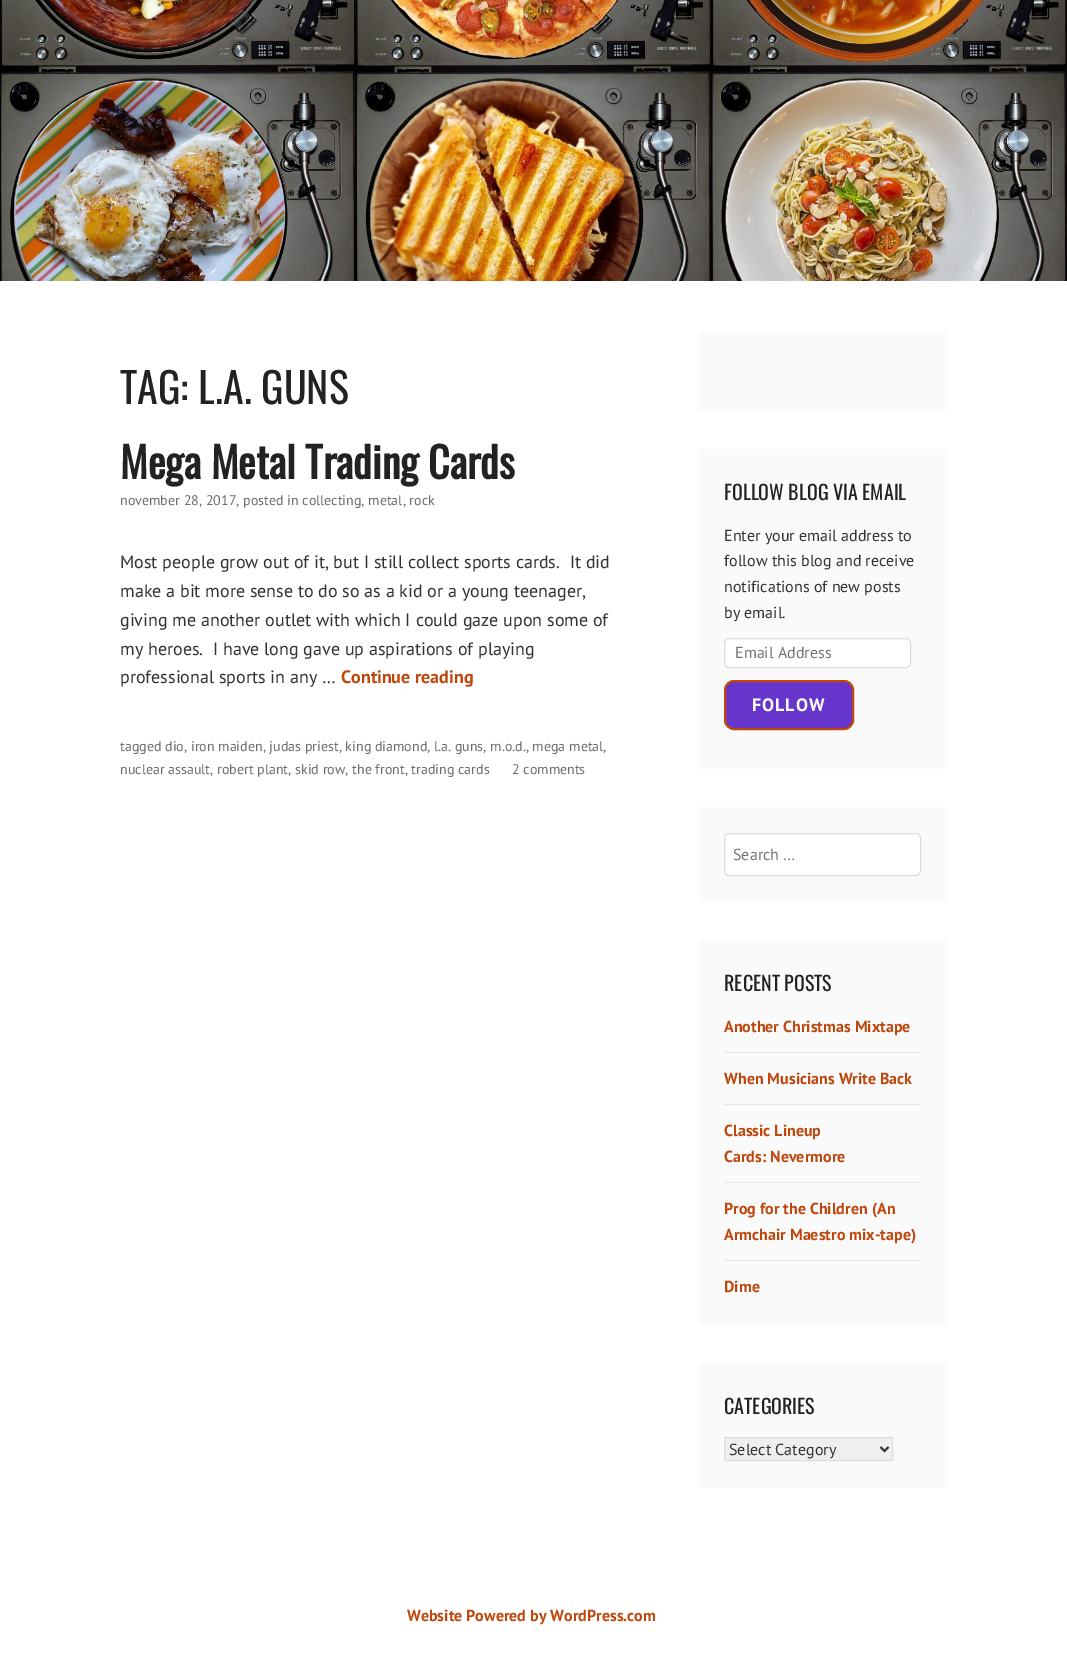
%!PS-Adobe-3.0
%%BoundingBox: 0 0 1067 1655
%%LanguageLevel: 3
%%Pages: 1
%%EndComments
%%BeginProlog
/m { moveto } bind def
/l { lineto } bind def
/h { closepath } bind def
/f { fill } bind def
/S { stroke } bind def
/q { gsave } bind def
/Q { grestore } bind def
/w { setlinewidth } bind def
/fn { [ exch dup neg 0 0 3 -1 roll 0 0 ] selectfont } def
/tx { moveto show } def
/bx { rectfill } def
/rr { 5 dict begin { /r /h /w /y /x } { exch def } forall
  x r add y moveto x w add y 2 copy h add r arct x w add y h add x 1 index r arct
  x y h add x y r arct x y 2 copy exch w add exch r arct closepath end } def
/im { 5 dict begin { /h /w /y /x /name } { exch def } forall
  gsave x y translate w h scale
  w h 8 [w 0 0 h 0 0] name (r) file false 3 colorimage grestore end } def
%%EndProlog
%%BeginSetup
<< /PageSize [1067 1655] >> setpagedevice
%%EndSetup
%%Page: 1 1
0 1655 translate 1 -1 scale
4 setmiterlimit
1 setgray
0 0 1067 1655 bx
(image0.raw) 0 0 1067 281 im
/Oswald-Regular 42 fn
0.133 setgray
(TAG: L.A. GUNS) 120 404 tx
/Oswald-Bold 42 fn
(Mega Metal Trading Cards) 120 479 tx
/PTSans-Regular 14 fn
0.427 setgray
(november 28, 2017, posted in collecting, metal, rock) 120 505 tx
/PTSans-Regular 18 fn
0.2 setgray
(Most people grow out of it, but I still collect sports cards.  It did) 120 568 tx
(make a bit more sense to do so as a kid or a young teenager,) 120 597 tx
(giving me another outlet with which I could gaze upon some of) 120 626 tx
(my heroes.  I have long gave up aspirations of playing) 120 655 tx
(professional sports in any …) 120 683 tx
/PTSans-Bold 18 fn
0.753 0.278 0.043 setrgbcolor
(Continue reading) 341 683 tx
/PTSans-Regular 14 fn
0.427 setgray
(tagged dio, iron maiden, judas priest, king diamond, l.a. guns, m.o.d., mega metal,) 120 751 tx
(nuclear assault, robert plant, skid row, the front, trading cards) 120 774 tx
(2 comments) 512 774 tx
0.98 setgray
699 332 248 79 bx
699 449 248 320 bx
/Oswald-Regular 20 fn
0.133 setgray
(FOLLOW BLOG VIA EMAIL) 724 500 tx
/PTSans-Regular 16 fn
0.2 setgray
(Enter your email address to) 724 541 tx
(follow this blog and receive) 724 566 tx
(notifications of new posts) 724 592 tx
(by email.) 724 618 tx
1 setgray
724.5 638.5 186 29 4.5 rr q f Q
0.867 setgray
S
0.459 setgray
(Email Address) 735 658 tx
0.4 0.212 0.8 setrgbcolor
725 681 128 48 9 rr q f Q
0.753 0.278 0.043 setrgbcolor
2 w
S
/PTSans-Bold 18 fn
1 setgray
752 711 m 1 0 (FOLLOW) ashow
0.98 setgray
699 807 248 95 bx
1 setgray
724.5 833.5 196 42 4.5 rr q f Q
0.867 setgray
1 w
S
/PTSans-Regular 16 fn
0.459 setgray
(Search …) 733 860 tx
0.98 setgray
699 940 248 385 bx
/Oswald-Regular 20 fn
0.133 setgray
(RECENT POSTS) 724 991 tx
/PTSans-Bold 16 fn
0.753 0.278 0.043 setrgbcolor
(Another Christmas Mixtape) 724 1032 tx
0.906 setgray
724 1052 197 1 bx
0.753 0.278 0.043 setrgbcolor
(When Musicians Write Back) 724 1084 tx
0.906 setgray
724 1104 197 1 bx
0.753 0.278 0.043 setrgbcolor
(Classic Lineup) 724 1136 tx
(Cards: Nevermore) 724 1162 tx
0.906 setgray
724 1182 197 1 bx
0.753 0.278 0.043 setrgbcolor
(Prog for the Children \(An) 724 1214 tx
(Armchair Maestro mix-tape\)) 724 1240 tx
0.906 setgray
724 1260 197 1 bx
0.753 0.278 0.043 setrgbcolor
(Dime) 724 1292 tx
0.98 setgray
699 1363 248 125 bx
/Oswald-Regular 20 fn
0.133 setgray
(CATEGORIES) 724 1414 tx
0.937 setgray
724.5 1437.5 m 892.5 1437.5 l 892.5 1460.5 l 724.5 1460.5 l h q f Q
0.867 setgray
S
0.2 setgray
2 w
880.5 1447 m 884.5 1451 l 888.5 1447 l S
/PTSans-Regular 16 fn
(Select Category) 729 1455 tx
/PTSans-Bold 16 fn
0.753 0.278 0.043 setrgbcolor
(Website Powered by WordPress.com) 407 1621 tx
showpage
%%EOF
